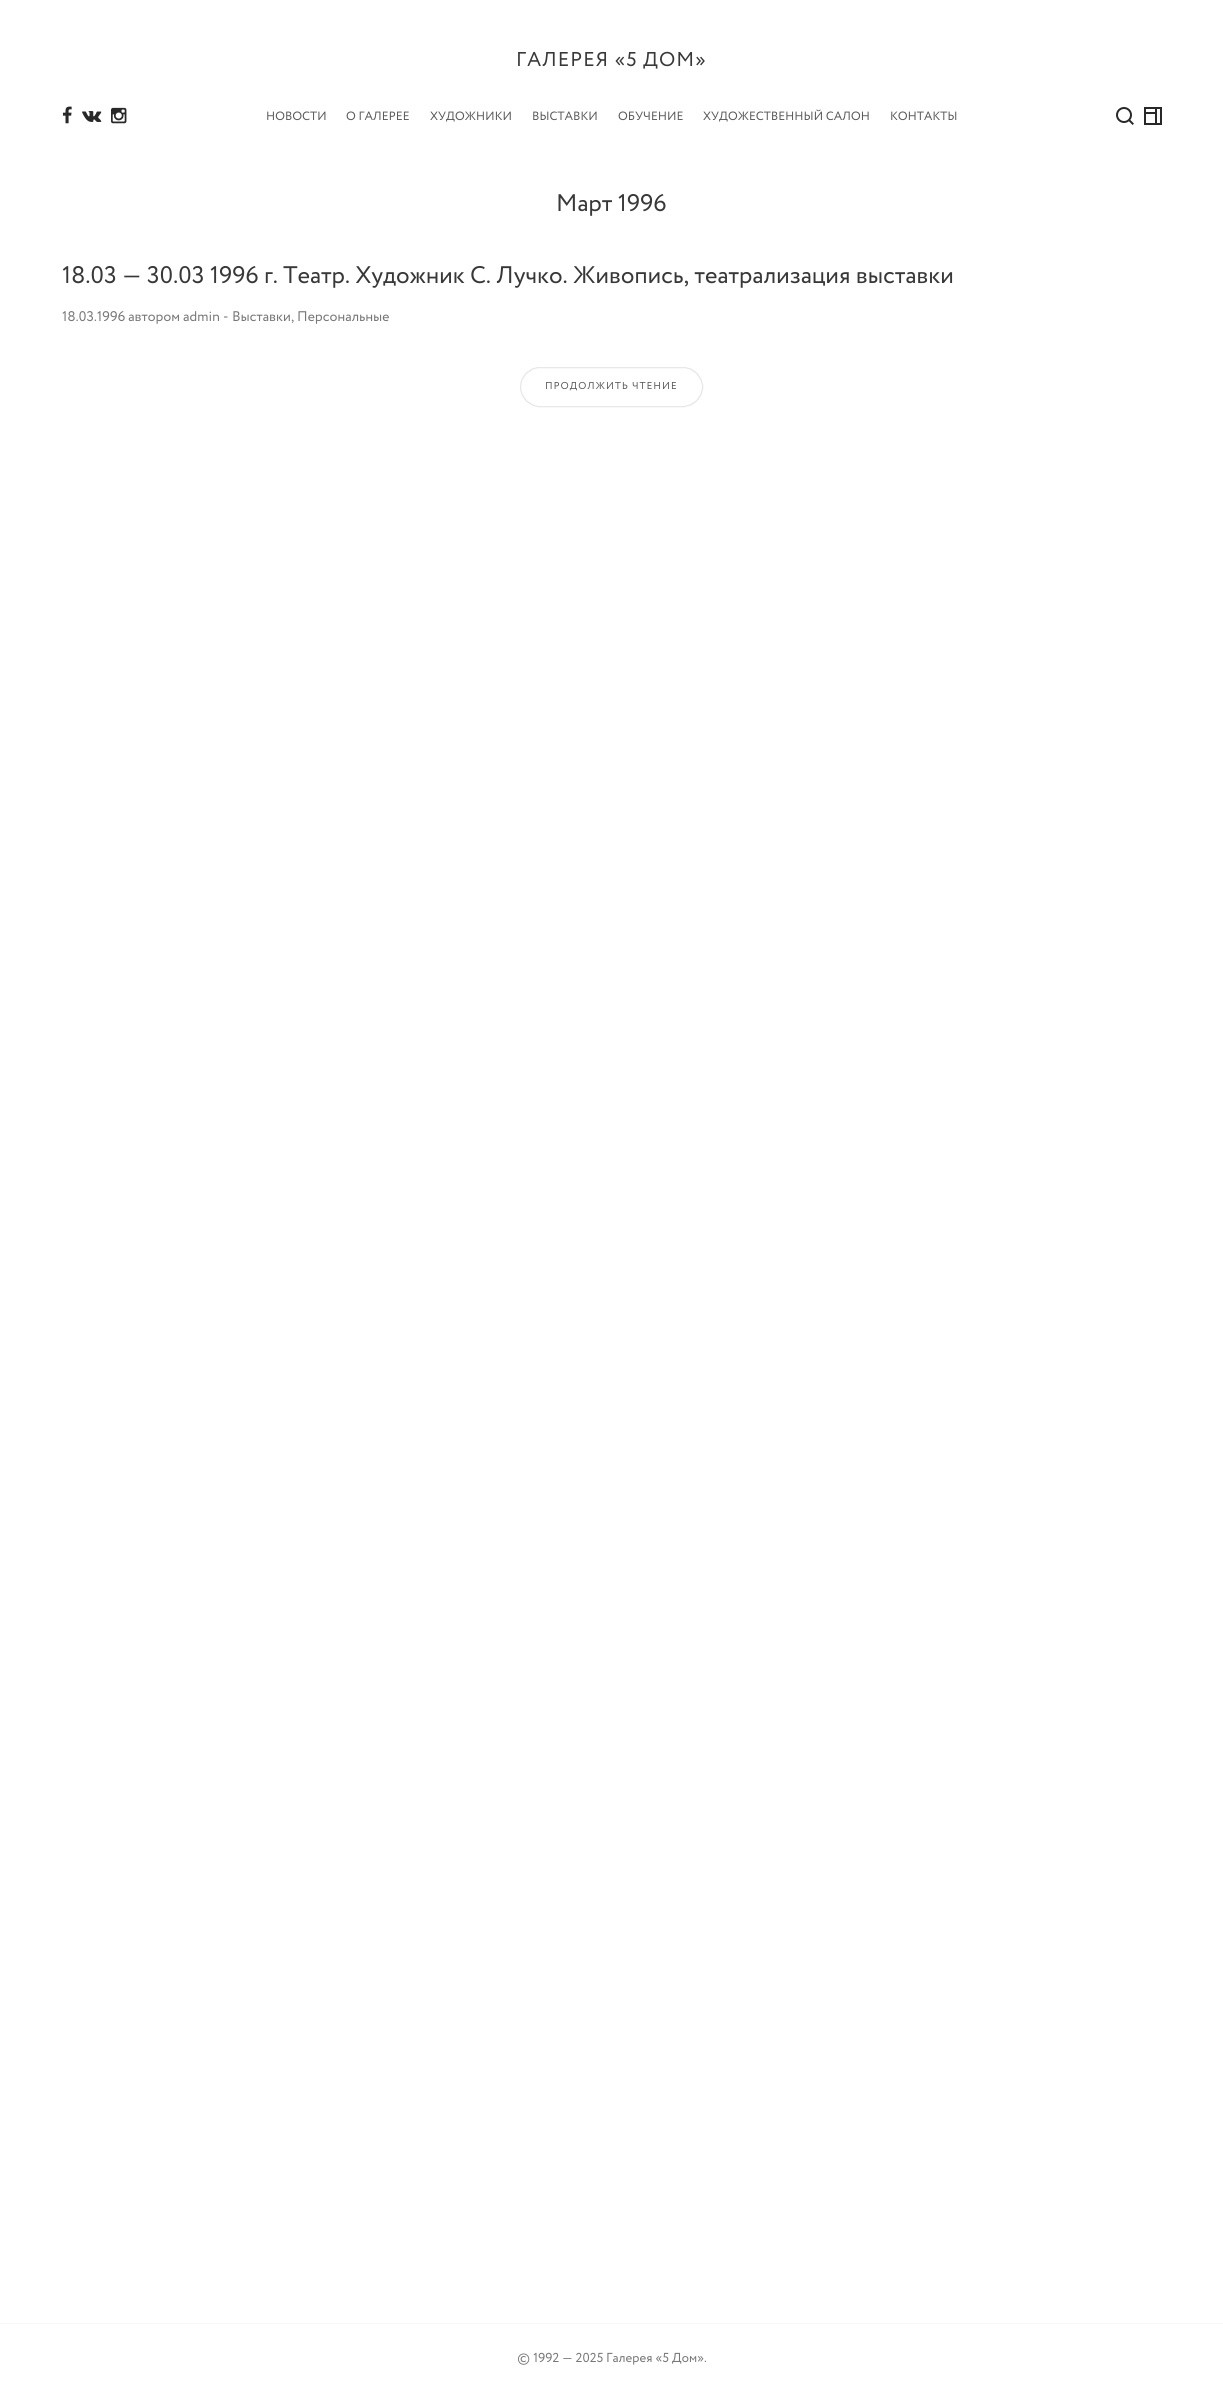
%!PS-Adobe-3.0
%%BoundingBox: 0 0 1223 2394
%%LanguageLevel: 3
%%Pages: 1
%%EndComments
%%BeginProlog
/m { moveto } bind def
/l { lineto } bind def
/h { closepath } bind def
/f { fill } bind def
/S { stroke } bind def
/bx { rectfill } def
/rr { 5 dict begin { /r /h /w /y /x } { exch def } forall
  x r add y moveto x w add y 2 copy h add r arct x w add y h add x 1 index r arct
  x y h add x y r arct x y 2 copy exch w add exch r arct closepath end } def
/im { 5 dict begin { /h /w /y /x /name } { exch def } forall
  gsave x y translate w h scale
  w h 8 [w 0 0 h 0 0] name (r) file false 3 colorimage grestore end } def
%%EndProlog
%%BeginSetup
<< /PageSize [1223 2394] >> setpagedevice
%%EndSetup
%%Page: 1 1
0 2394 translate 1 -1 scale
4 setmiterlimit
1 setgray
0 0 1223 2394 bx
(image0.raw) 518 51 187 18 im
(image1.raw) 62 106 10 18 im
(image2.raw) 82 111 20 11 im
(image3.raw) 111 107 16 17 im
(image4.raw) 267 111 59 10 im
(image5.raw) 346 111 63 10 im
(image6.raw) 430 111 81 11 im
(image7.raw) 533 111 64 10 im
(image8.raw) 618 111 65 10 im
(image9.raw) 703 109 166 13 im
(image10.raw) 891 111 66 10 im
(image11.raw) 1116 107 18 18 im
(image12.raw) 1144 107 18 18 im
(image13.raw) 558 194 108 22 im
(image14.raw) 62 266 891 22 im
(image15.raw) 62 311 63 11 im
(image16.raw) 128 314 51 10 im
(image17.raw) 183 311 36 11 im
0.471 setgray
224 317.5 m 227.5 317.5 l 227.5 316.5 l 224 316.5 l h f
(image18.raw) 233 311 57 11 im
(image19.raw) 298 311 91 13 im
(image20.raw) 291 319 3 4 im
0.91 setgray
520.5 367.5 182 39 19.5 rr S
(image21.raw) 546 381 130 10 im
0.973 setgray
0 2323 1223 1 bx
(image22.raw) 518 2352 85 13 im
(image23.raw) 607 2352 100 13 im
showpage
%%EOF
